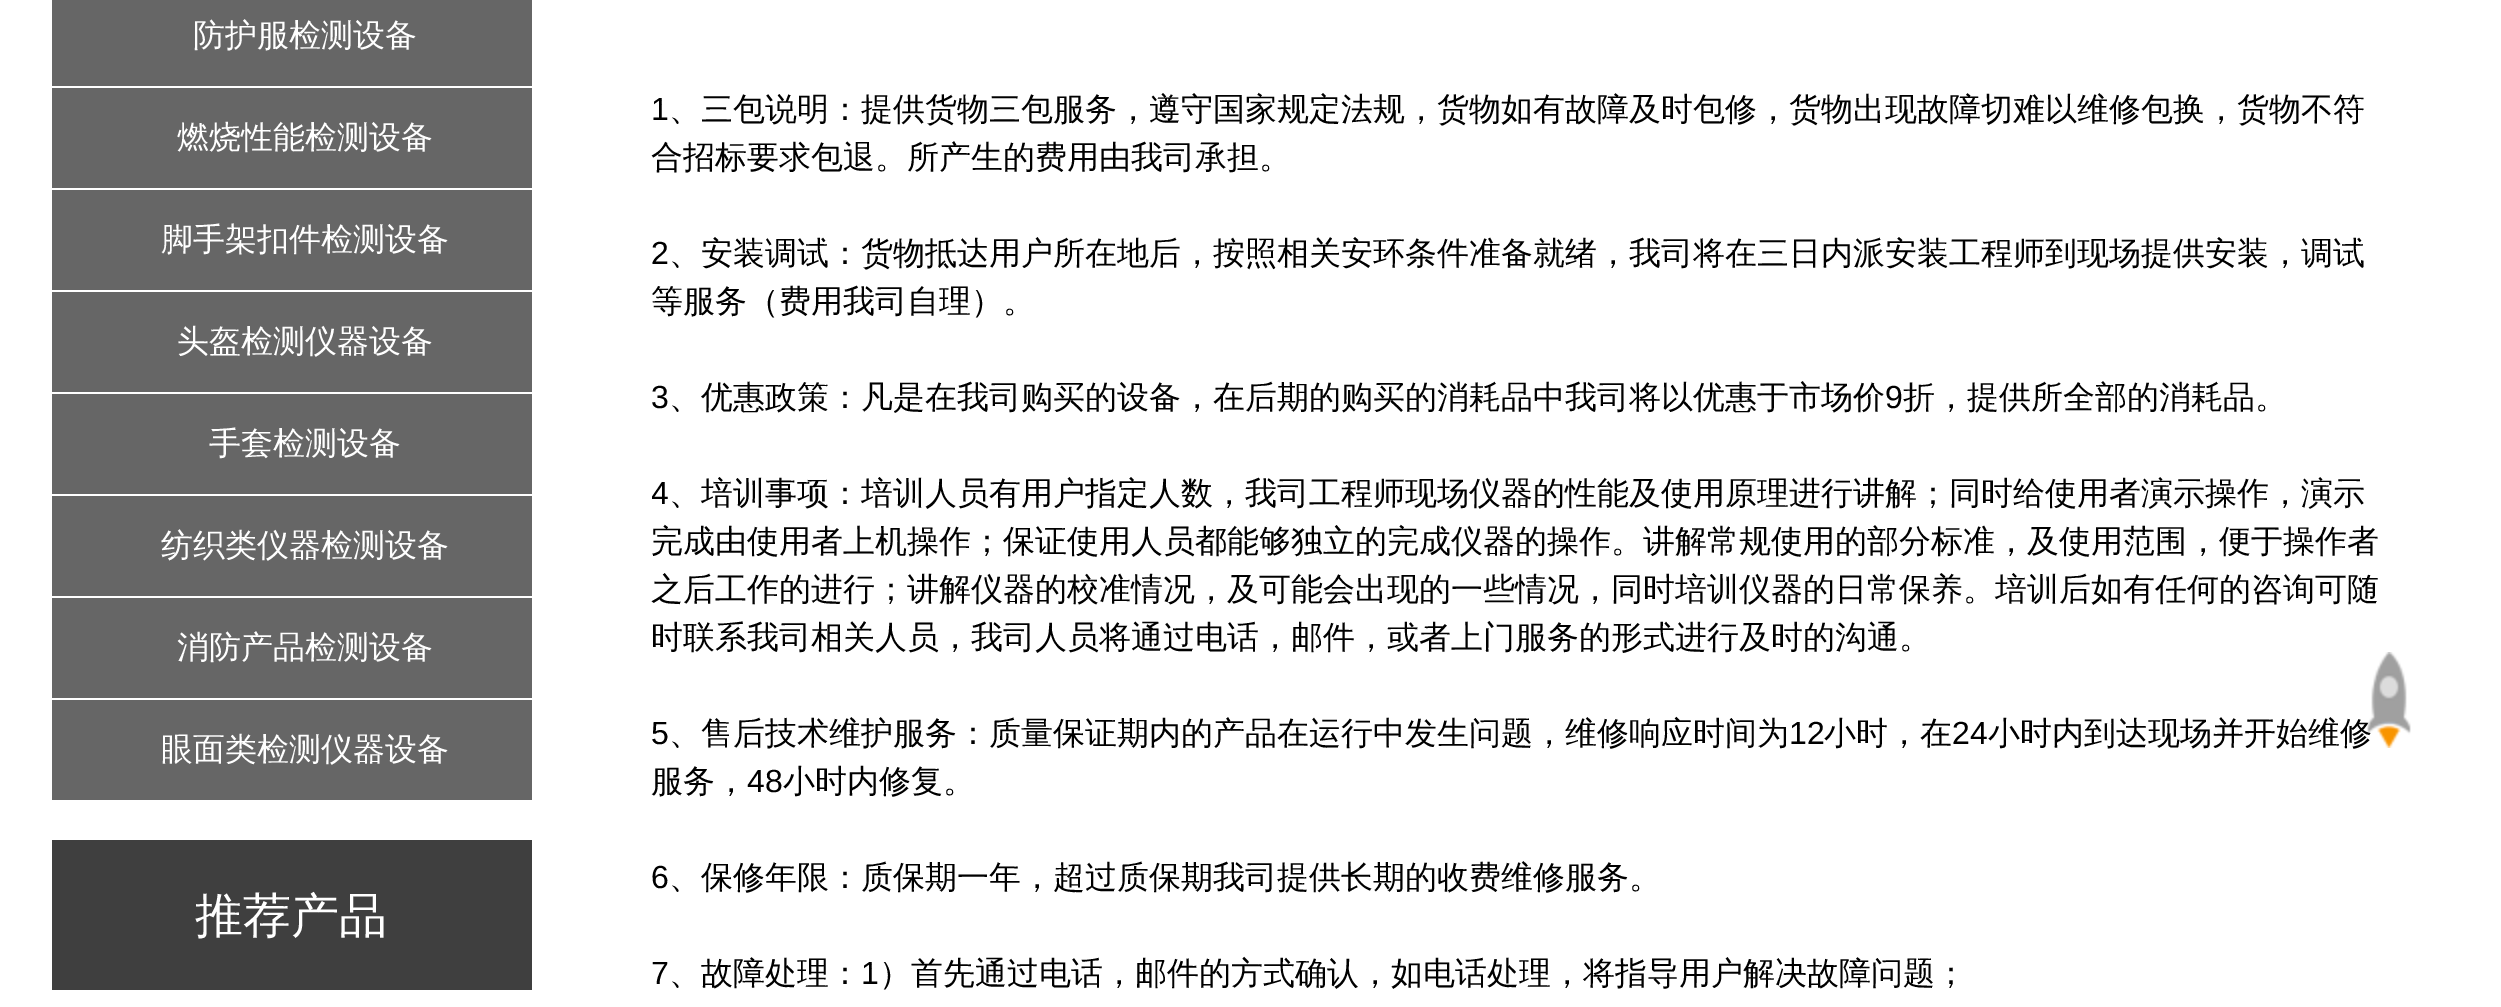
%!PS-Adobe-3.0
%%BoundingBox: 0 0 2501 1007
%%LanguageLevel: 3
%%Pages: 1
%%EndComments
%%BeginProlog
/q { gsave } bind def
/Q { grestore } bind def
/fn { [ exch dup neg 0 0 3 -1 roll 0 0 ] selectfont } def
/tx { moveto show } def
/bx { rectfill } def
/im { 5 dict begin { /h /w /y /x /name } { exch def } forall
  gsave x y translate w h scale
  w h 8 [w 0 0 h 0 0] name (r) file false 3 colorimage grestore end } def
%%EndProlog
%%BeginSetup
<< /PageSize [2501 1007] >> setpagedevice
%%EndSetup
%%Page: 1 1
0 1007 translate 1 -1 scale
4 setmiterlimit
1 setgray
0 0 2501 1007 bx
0.4 setgray
52 0 480 86 bx
/WenQuanYiZenHei-Medium 32 fn
1 setgray
(防护服检测设备) 193 46 tx
0.4 setgray
52 88 480 100 bx
1 setgray
(燃烧性能检测设备) 177 148 tx
0.4 setgray
52 190 480 100 bx
1 setgray
(脚手架扣件检测设备) 161 250 tx
0.4 setgray
52 292 480 100 bx
1 setgray
(头盔检测仪器设备) 177 352 tx
0.4 setgray
52 394 480 100 bx
1 setgray
(手套检测设备) 209 454 tx
0.4 setgray
52 496 480 100 bx
1 setgray
(纺织类仪器检测设备) 161 556 tx
0.4 setgray
52 598 480 100 bx
1 setgray
(消防产品检测设备) 177 658 tx
0.4 setgray
52 700 480 100 bx
1 setgray
(眼面类检测仪器设备) 161 760 tx
0.247 setgray
52 840 480 150 bx
/WenQuanYiZenHei-Medium 48 fn
1 setgray
(推荐产品) 195 932 tx
/LiberationSans-Regular 32 fn
0 setgray
(1) 651 120 tx
/WenQuanYiZenHei-Medium 32 fn
(、三包说明：提供货物三包服务，遵守国家规定法规，货物如有故障及时包修，货物出现故障切难以维修包换，货物不符) 669 120 tx
(合招标要求包退。所产生的费用由我司承担。) 651 168 tx
/LiberationSans-Regular 32 fn
(2) 651 264 tx
/WenQuanYiZenHei-Medium 32 fn
(、安装调试：货物抵达用户所在地后，按照相关安环条件准备就绪，我司将在三日内派安装工程师到现场提供安装，调试) 669 264 tx
(等服务（费用我司自理）。) 651 312 tx
/LiberationSans-Regular 32 fn
(3) 651 408 tx
/WenQuanYiZenHei-Medium 32 fn
(、优惠政策：凡是在我司购买的设备，在后期的购买的消耗品中我司将以优惠于市场价) 669 408 tx
/LiberationSans-Regular 32 fn
(9) 1885 408 tx
/WenQuanYiZenHei-Medium 32 fn
(折，提供所全部的消耗品。) 1903 408 tx
q
652 0 1740 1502 rectclip
/LiberationSans-Regular 32 fn
(4) 651 504 tx
Q
(、培训事项：培训人员有用户指定人数，我司工程师现场仪器的性能及使用原理进行讲解；同时给使用者演示操作，演示) 669 504 tx
(完成由使用者上机操作；保证使用人员都能够独立的完成仪器的操作。讲解常规使用的部分标准，及使用范围，便于操作者) 651 552 tx
(之后工作的进行；讲解仪器的校准情况，及可能会出现的一些情况，同时培训仪器的日常保养。培训后如有任何的咨询可随) 651 600 tx
(时联系我司相关人员，我司人员将通过电话，邮件，或者上门服务的形式进行及时的沟通。) 651 648 tx
/LiberationSans-Regular 32 fn
(5) 651 744 tx
/WenQuanYiZenHei-Medium 32 fn
(、售后技术维护服务：质量保证期内的产品在运行中发生问题，维修响应时间为) 669 744 tx
/LiberationSans-Regular 32 fn
(12) 1789 744 tx
/WenQuanYiZenHei-Medium 32 fn
(小时，在) 1824 744 tx
/LiberationSans-Regular 32 fn
(24) 1952 744 tx
/WenQuanYiZenHei-Medium 32 fn
(小时内到达现场并开始维修) 1988 744 tx
(服务，) 651 792 tx
/LiberationSans-Regular 32 fn
(48) 747 792 tx
/WenQuanYiZenHei-Medium 32 fn
(小时内修复。) 783 792 tx
/LiberationSans-Regular 32 fn
(6) 651 888 tx
/WenQuanYiZenHei-Medium 32 fn
(、保修年限：质保期一年，超过质保期我司提供长期的收费维修服务。) 669 888 tx
/LiberationSans-Regular 32 fn
(7) 651 984 tx
/WenQuanYiZenHei-Medium 32 fn
(、故障处理：) 669 984 tx
/LiberationSans-Regular 32 fn
(1) 861 984 tx
/WenQuanYiZenHei-Medium 32 fn
(）首先通过电话，邮件的方式确认，如电话处理，将指导用户解决故障问题；) 879 984 tx
(image0.raw) 2367 652 44 96 im
showpage
%%EOF
